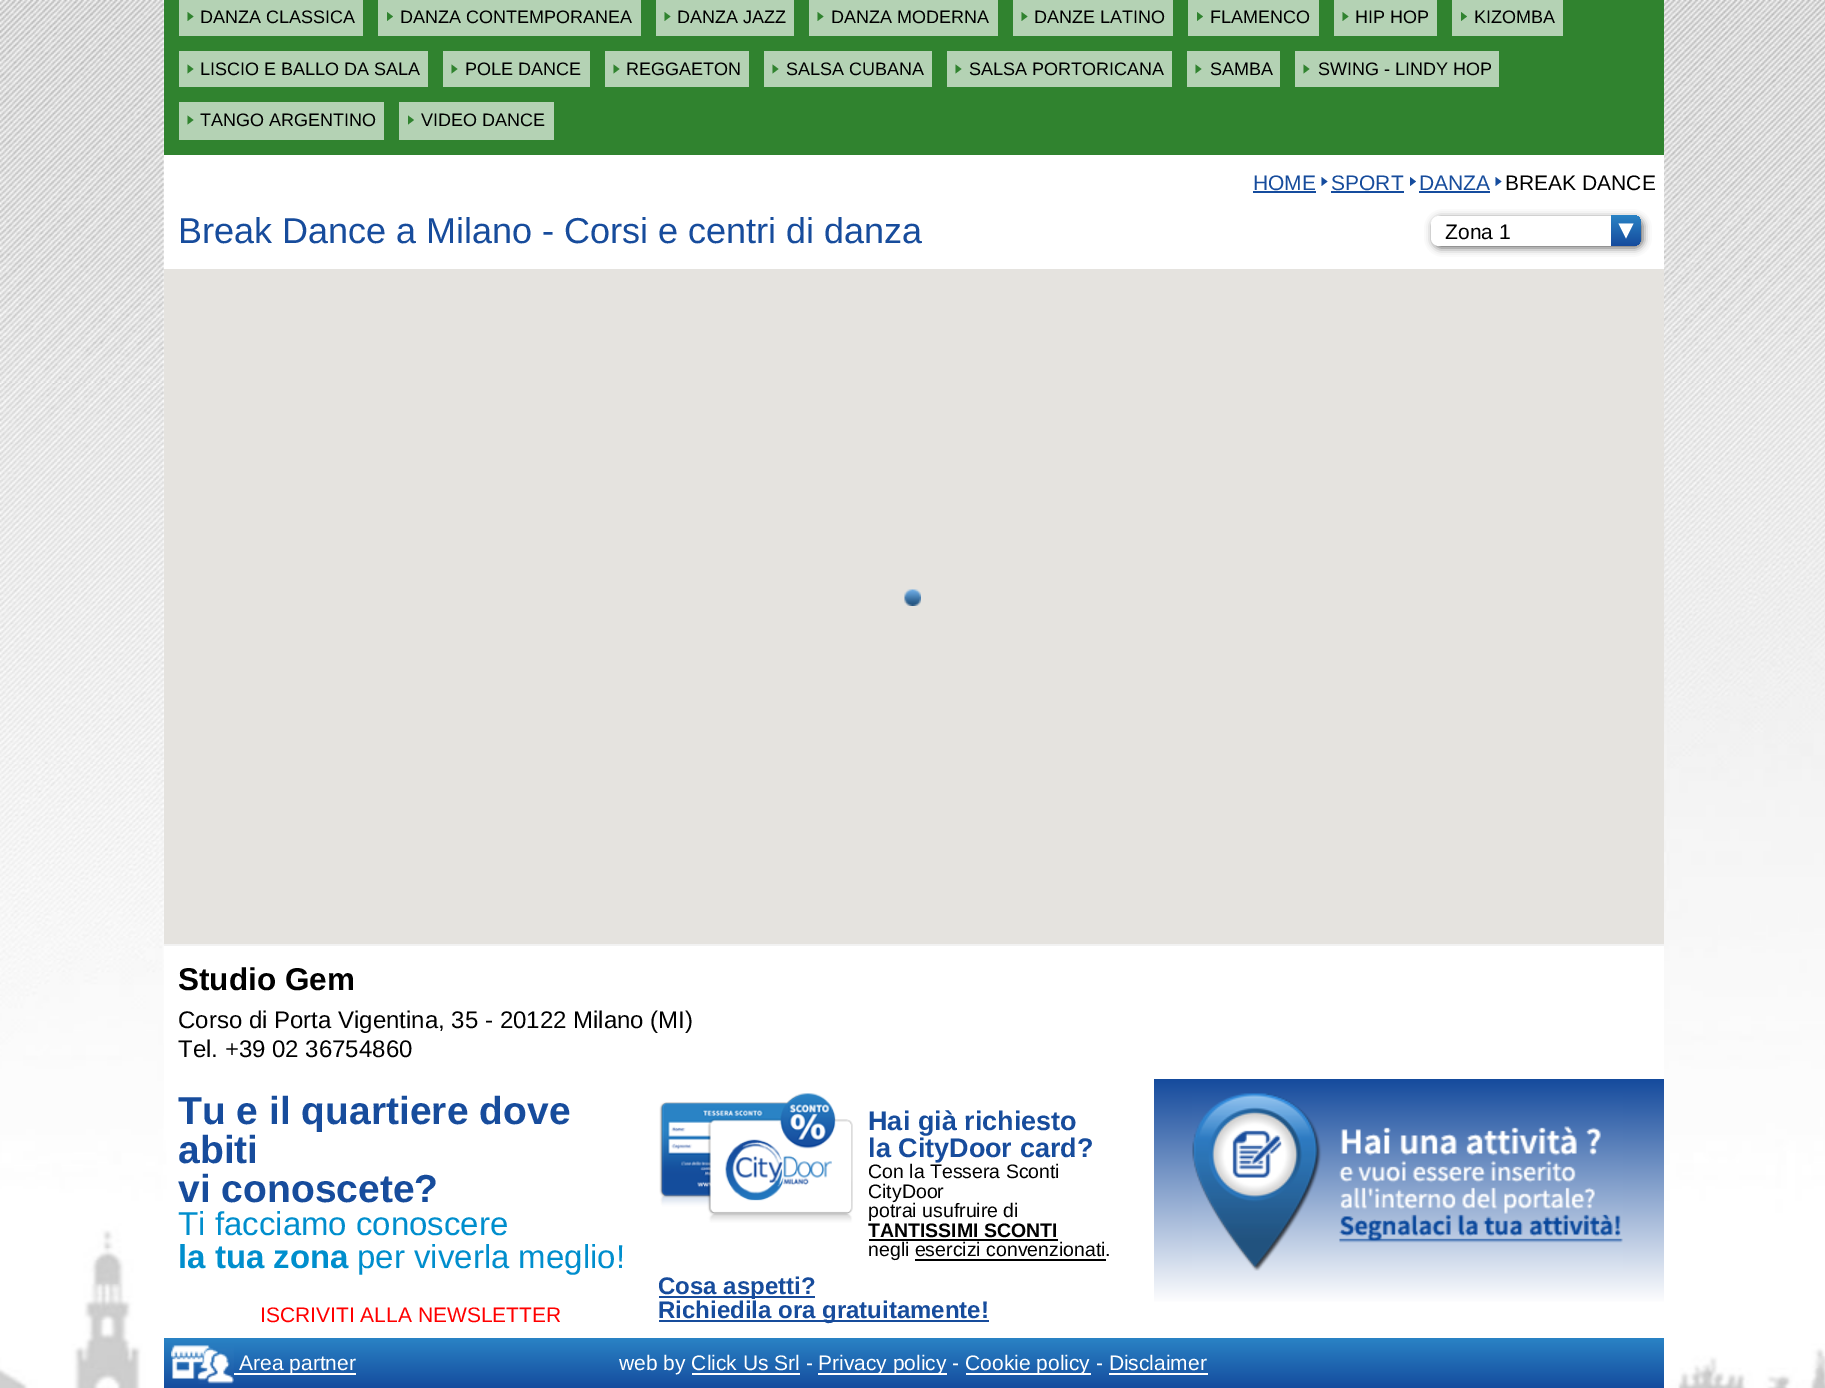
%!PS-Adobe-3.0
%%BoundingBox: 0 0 1825 1388
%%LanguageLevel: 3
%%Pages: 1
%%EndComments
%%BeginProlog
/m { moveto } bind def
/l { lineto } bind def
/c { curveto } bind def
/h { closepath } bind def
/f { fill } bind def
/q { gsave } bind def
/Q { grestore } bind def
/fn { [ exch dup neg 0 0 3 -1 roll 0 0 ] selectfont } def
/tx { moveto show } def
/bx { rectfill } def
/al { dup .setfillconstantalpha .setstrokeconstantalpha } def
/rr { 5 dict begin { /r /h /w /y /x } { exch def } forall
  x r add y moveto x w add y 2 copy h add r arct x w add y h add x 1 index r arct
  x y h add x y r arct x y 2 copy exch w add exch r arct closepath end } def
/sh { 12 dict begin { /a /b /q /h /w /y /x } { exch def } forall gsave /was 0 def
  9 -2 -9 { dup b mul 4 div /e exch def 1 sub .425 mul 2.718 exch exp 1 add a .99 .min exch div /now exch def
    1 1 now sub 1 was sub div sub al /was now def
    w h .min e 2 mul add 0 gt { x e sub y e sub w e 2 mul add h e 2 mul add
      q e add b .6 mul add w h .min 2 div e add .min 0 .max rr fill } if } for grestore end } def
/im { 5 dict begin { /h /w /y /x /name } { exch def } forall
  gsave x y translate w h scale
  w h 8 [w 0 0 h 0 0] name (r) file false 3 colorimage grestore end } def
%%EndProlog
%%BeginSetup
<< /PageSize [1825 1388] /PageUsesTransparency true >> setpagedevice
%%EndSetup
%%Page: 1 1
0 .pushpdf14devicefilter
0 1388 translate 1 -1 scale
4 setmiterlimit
1 setgray
0 0 1825 1388 bx
(image0.raw) 0 0 1825 1388 im
164 155 1500 985 bx
0.188 0.514 0.184 setrgbcolor
164 0 1500 155 bx
0.706 0.824 0.706 setrgbcolor
179 0 184 36 bx
0.188 0.514 0.184 setrgbcolor
187.5 21 m 187.5 12 l 193.5 16.5 l h f
/LiberationSans-Regular 18 fn
0 setgray
(DANZA CLASSICA) 200 23 tx
0.706 0.824 0.706 setrgbcolor
378 0 263 36 bx
0.188 0.514 0.184 setrgbcolor
387 21 m 387 12 l 393 16.5 l h f
0 setgray
(DANZA CONTEMPORANEA) 400 23 tx
0.706 0.824 0.706 setrgbcolor
656 0 138 36 bx
0.188 0.514 0.184 setrgbcolor
664.5 21 m 664.5 12 l 670.5 16.5 l h f
0 setgray
(DANZA JAZZ) 677 23 tx
0.706 0.824 0.706 setrgbcolor
809 0 189 36 bx
0.188 0.514 0.184 setrgbcolor
817.5 21 m 817.5 12 l 823.5 16.5 l h f
0 setgray
(DANZA MODERNA) 831 23 tx
0.706 0.824 0.706 setrgbcolor
1013 0 160 36 bx
0.188 0.514 0.184 setrgbcolor
1021.5 21 m 1021.5 12 l 1027.5 16.5 l h f
0 setgray
(DANZE LATINO) 1034 23 tx
0.706 0.824 0.706 setrgbcolor
1188 0 131 36 bx
0.188 0.514 0.184 setrgbcolor
1197 21 m 1197 12 l 1203 16.5 l h f
0 setgray
(FLAMENCO) 1210 23 tx
0.706 0.824 0.706 setrgbcolor
1334 0 103 36 bx
0.188 0.514 0.184 setrgbcolor
1342.5 21 m 1342.5 12 l 1348.5 16.5 l h f
0 setgray
(HIP HOP) 1355 23 tx
0.706 0.824 0.706 setrgbcolor
1452 0 111 36 bx
0.188 0.514 0.184 setrgbcolor
1461 21 m 1461 12 l 1467 16.5 l h f
0 setgray
(KIZOMBA) 1474 23 tx
0.706 0.824 0.706 setrgbcolor
179 51 249 36 bx
0.188 0.514 0.184 setrgbcolor
187.5 73.5 m 187.5 64.5 l 193.5 69 l h f
0 setgray
(LISCIO E BALLO DA SALA) 200 75 tx
0.706 0.824 0.706 setrgbcolor
443 51 147 36 bx
0.188 0.514 0.184 setrgbcolor
451.5 73.5 m 451.5 64.5 l 457.5 69 l h f
0 setgray
(POLE DANCE) 465 75 tx
0.706 0.824 0.706 setrgbcolor
605 51 144 36 bx
0.188 0.514 0.184 setrgbcolor
613.5 73.5 m 613.5 64.5 l 619.5 69 l h f
0 setgray
(REGGAETON) 626 75 tx
0.706 0.824 0.706 setrgbcolor
764 51 168 36 bx
0.188 0.514 0.184 setrgbcolor
772.5 73.5 m 772.5 64.5 l 778.5 69 l h f
0 setgray
(SALSA CUBANA) 786 75 tx
0.706 0.824 0.706 setrgbcolor
947 51 225 36 bx
0.188 0.514 0.184 setrgbcolor
955.5 73.5 m 955.5 64.5 l 961.5 69 l h f
0 setgray
(SALSA PORTORICANA) 969 75 tx
0.706 0.824 0.706 setrgbcolor
1187 51 93 36 bx
0.188 0.514 0.184 setrgbcolor
1195.5 73.5 m 1195.5 64.5 l 1201.5 69 l h f
0 setgray
(SAMBA) 1210 75 tx
0.706 0.824 0.706 setrgbcolor
1295 51 204 36 bx
0.188 0.514 0.184 setrgbcolor
1303.5 73.5 m 1303.5 64.5 l 1309.5 69 l h f
0 setgray
(SWING - LINDY HOP) 1318 75 tx
0.706 0.824 0.706 setrgbcolor
179 102 205 38 bx
0.188 0.514 0.184 setrgbcolor
187.5 124.5 m 187.5 115.5 l 193.5 120 l h f
0 setgray
(TANGO ARGENTINO) 200 126 tx
0.706 0.824 0.706 setrgbcolor
399 102 155 38 bx
0.188 0.514 0.184 setrgbcolor
408 124.5 m 408 115.5 l 414 120 l h f
0 setgray
(VIDEO DANCE) 421 126 tx
/LiberationSans-Regular 21 fn
0.09 0.298 0.612 setrgbcolor
(HOME) 1253 190 tx
0.082 0.298 0.62 setrgbcolor
1253 191 63 2 bx
1321.5 186 m 1321.5 177 l 1327.5 181.5 l h f
0.09 0.298 0.612 setrgbcolor
(SPORT) 1331 190 tx
0.082 0.298 0.62 setrgbcolor
1331 191 73 2 bx
1410 186 m 1410 177 l 1416 181.5 l h f
0.09 0.298 0.612 setrgbcolor
(DANZA) 1419 190 tx
0.082 0.298 0.62 setrgbcolor
1419 191 71 2 bx
1495.5 186 m 1495.5 177 l 1501.5 181.5 l h f
0 setgray
(BREAK DANCE) 1505 190 tx
/LiberationSans-Regular 36 fn
0.09 0.298 0.612 setrgbcolor
(Break Dance a Milano - Corsi e centri di danza) 178 243 tx
0.196 setgray
1433 218 210 30 8 4 0.75 sh
1 setgray
1431 216 210 30 8 rr f
q 1611 215 m 1633 215 l 1637.5 215 1641 218.5 1641 223 c 1641 238 l 1641 242.5 1637.5 246 1633 246 c 1611 246 l h clip newpath
<< /ShadingType 2 /ColorSpace /DeviceRGB /Coords [1626 215 1626 246] /Extend [true true] /Function << /FunctionType 2 /Domain [0 1] /C0 [0.165 0.514 0.773] /C1 [0.082 0.294 0.616] /N 1 >> >> shfill Q
/LiberationSans-Regular 21 fn
0 setgray
(Zona 1) 1445 239 tx
1 setgray
1618.5 223.5 m 1633.5 223.5 l 1626 238.5 l h f
0.898 0.89 0.875 setrgbcolor
164 269 1500 675 bx
(image1.raw) 904 589 17 17 im
0.949 setgray
164 944 1500 2 bx
/LiberationSans-Bold 31.5 fn
0 setgray
(Studio Gem) 178 990 tx
/LiberationSans-Regular 24 fn
(Corso di Porta Vigentina, 35 - 20122 Milano \(MI\)) 178 1028 tx
(Tel. +39 02 36754860) 178 1057 tx
/LiberationSans-Bold 39 fn
0.09 0.298 0.612 setrgbcolor
(Tu e il quartiere dove) 178 1124 tx
(abiti) 178 1163 tx
(vi conoscete?) 178 1202 tx
/LiberationSans-Regular 33 fn
0 0.557 0.804 setrgbcolor
(Ti facciamo conoscere) 178 1235 tx
/LiberationSans-Bold 33 fn
(la tua zona) 178 1268 tx
/LiberationSans-Regular 33 fn
(per viverla meglio!) 357 1268 tx
/LiberationSans-Regular 21 fn
1 0 0 setrgbcolor
(ISCRIVITI ALLA NEWSLETTER) 260 1322 tx
(image2.raw) 659 1093 194 130 im
/LiberationSans-Bold 27 fn
0.09 0.298 0.612 setrgbcolor
(Hai già richiesto) 868 1130 tx
(la CityDoor card?) 868 1157 tx
/LiberationSans-Regular 19.5 fn
0 setgray
(Con la Tessera Sconti) 868 1178 tx
(CityDoor) 868 1198 tx
(potrai usufruire di) 868 1217 tx
/LiberationSans-Bold 19.5 fn
(TANTISSIMI SCONTI) 868 1237 tx
869 1239 189 2 bx
/LiberationSans-Regular 19.5 fn
(negli esercizi convenzionati.) 868 1256 tx
915 1259 191 2 bx
0.09 0.298 0.612 setrgbcolor
659 1296 156 2 bx
/LiberationSans-Bold 24 fn
(Cosa aspetti?) 658 1294 tx
659 1320 330 2 bx
(Richiedila ora gratuitamente!) 658 1318 tx
q 1154 1079 m 1664 1079 l 1664 1302 l 1154 1302 l h clip newpath
<< /ShadingType 2 /ColorSpace /DeviceRGB /Coords [1409 1079 1409 1304] /Extend [true true] /Function << /FunctionType 2 /Domain [0 1] /C0 [0.082 0.294 0.616] /C1 [1 1 1] /N 1 >> >> shfill Q
(image3.raw) 1192 1093 431 178 im
q 164 1338 m 1664 1338 l 1664 1388 l 164 1388 l h clip newpath
<< /ShadingType 2 /ColorSpace /DeviceRGB /Coords [914 1338 914 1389] /Extend [true true] /Function << /FunctionType 2 /Domain [0 1] /C0 [0.165 0.514 0.773] /C1 [0.082 0.294 0.616] /N 1 >> >> shfill Q
(image4.raw) 171 1345 63 39 im
1 setgray
234 1373 122 2 bx
/LiberationSans-Regular 21 fn
(Area partner) 239 1370 tx
(web by Click Us Srl -) 619 1370 tx
818 1373 129 2 bx
(Privacy policy -) 818 1370 tx
966 1373 125 2 bx
(Cookie policy - Disclaimer) 965 1370 tx
692 1373 108 2 bx
1109 1373 99 2 bx
.poppdf14devicefilter showpage
%%EOF
